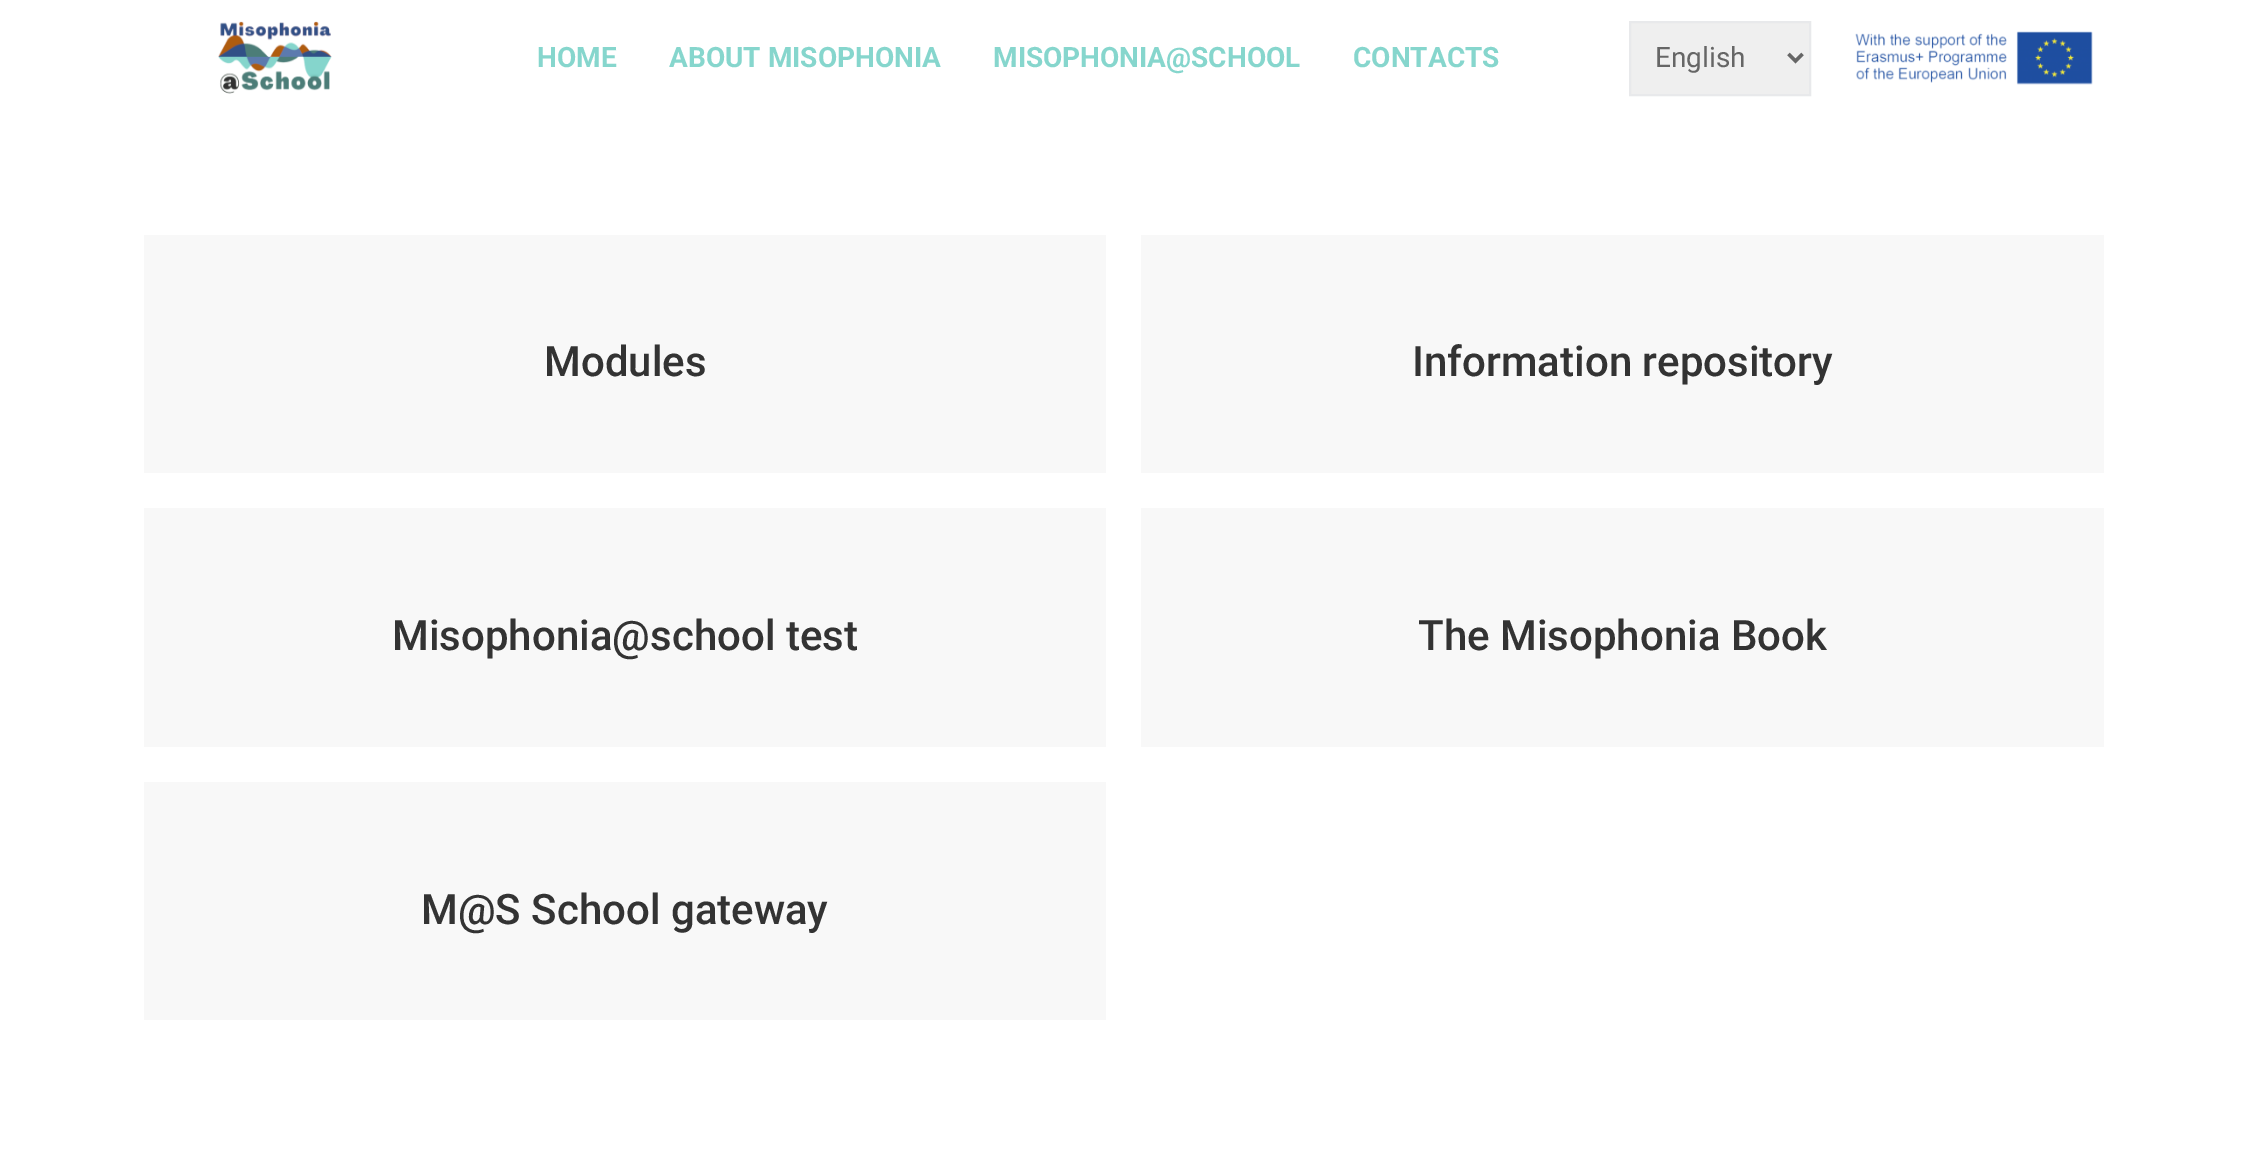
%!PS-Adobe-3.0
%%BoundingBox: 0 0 2246 1149
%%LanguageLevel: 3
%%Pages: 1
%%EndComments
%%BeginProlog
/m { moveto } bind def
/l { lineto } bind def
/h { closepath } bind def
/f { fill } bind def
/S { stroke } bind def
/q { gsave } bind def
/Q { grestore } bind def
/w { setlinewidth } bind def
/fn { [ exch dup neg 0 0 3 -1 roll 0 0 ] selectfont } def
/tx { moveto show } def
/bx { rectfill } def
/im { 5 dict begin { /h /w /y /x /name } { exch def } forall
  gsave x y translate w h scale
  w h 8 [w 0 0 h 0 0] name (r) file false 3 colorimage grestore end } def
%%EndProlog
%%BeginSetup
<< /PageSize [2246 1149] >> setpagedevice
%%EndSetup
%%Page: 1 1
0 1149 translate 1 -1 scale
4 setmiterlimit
1 setgray
0 0 2246 1149 bx
(image0.raw) 218 21 114 73 im
/Roboto-Bold 28 fn
0.525 0.839 0.804 setrgbcolor
(HOME) 537 67 tx
(ABOUT MISOPHONIA) 669 67 tx
(MISOPHONIA@SCHOOL) 993 67 tx
(CONTACTS) 1353 67 tx
0.937 setgray
1630 22 m 1810 22 l 1810 95 l 1630 95 l h q f Q
0.91 0.914 0.922 setrgbcolor
2 w
S
0.4 setgray
3.5 w
1788.5 54 m 1795.5 61 l 1802.5 54 l S
/Roboto-Regular 28 fn
(English) 1655 67 tx
(image1.raw) 1855 31 238 54 im
0.973 setgray
144 235 962 238 bx
/Roboto-Medium 42 fn
0.2 setgray
(Modules) 544 376 tx
0.973 setgray
1141 235 963 238 bx
0.2 setgray
(Information repository) 1412 376 tx
0.973 setgray
144 508 962 239 bx
0.2 setgray
(Misophonia@school test) 392 650 tx
0.973 setgray
1141 508 963 239 bx
0.2 setgray
(The Misophonia Book) 1418 650 tx
0.973 setgray
144 782 962 238 bx
0.2 setgray
(M@S School gateway) 421 924 tx
showpage
%%EOF
